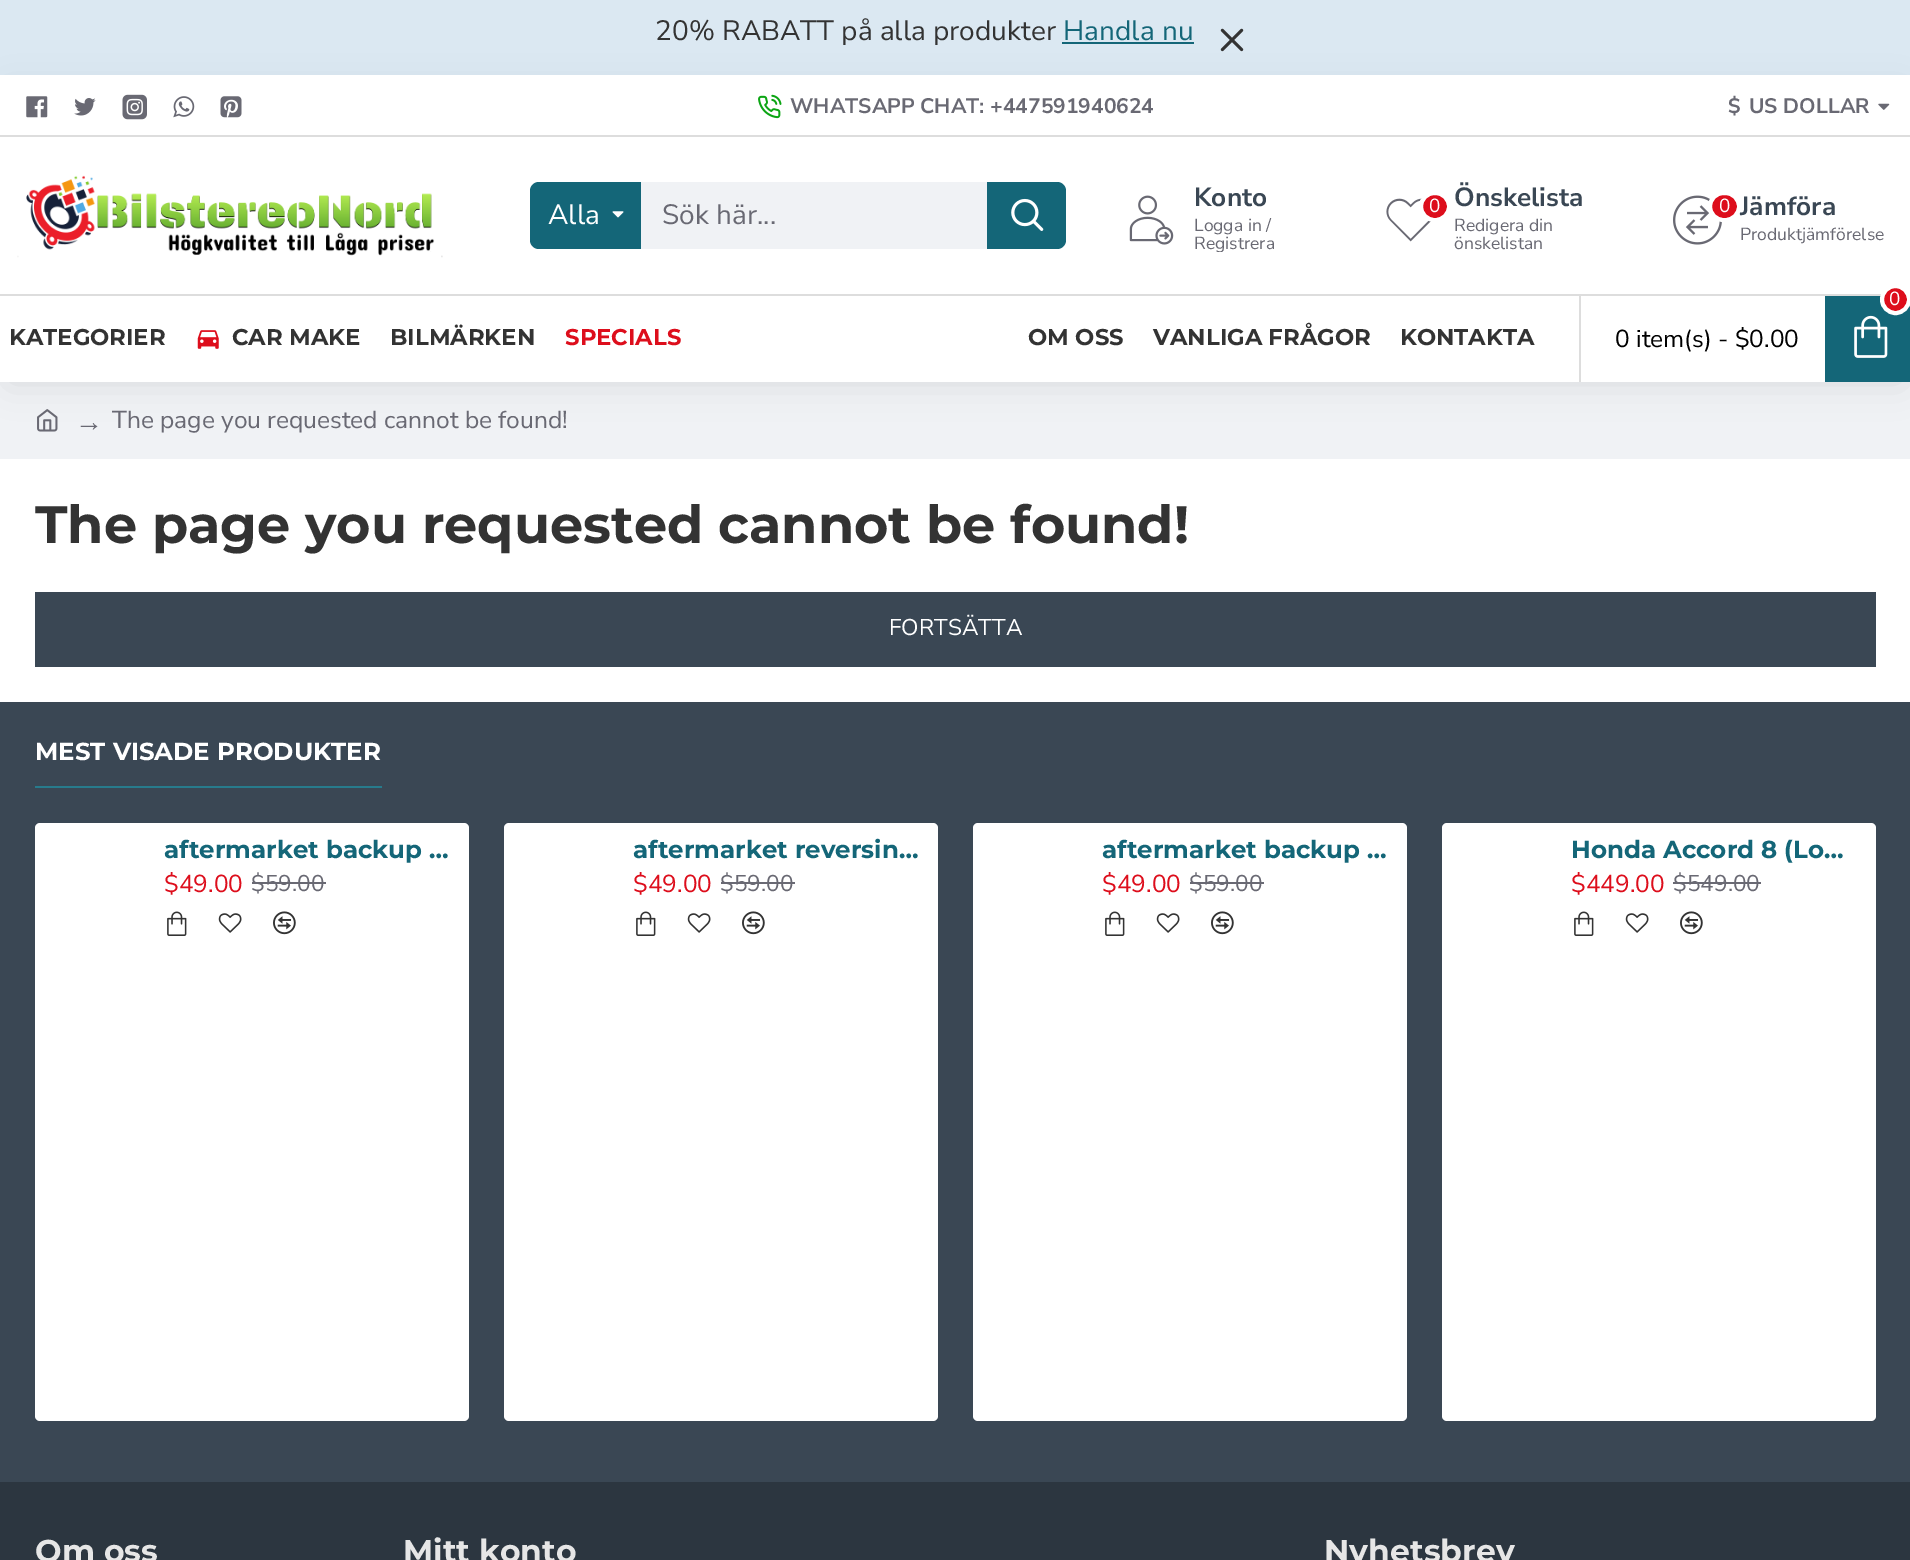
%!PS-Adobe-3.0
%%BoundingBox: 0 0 1910 1560
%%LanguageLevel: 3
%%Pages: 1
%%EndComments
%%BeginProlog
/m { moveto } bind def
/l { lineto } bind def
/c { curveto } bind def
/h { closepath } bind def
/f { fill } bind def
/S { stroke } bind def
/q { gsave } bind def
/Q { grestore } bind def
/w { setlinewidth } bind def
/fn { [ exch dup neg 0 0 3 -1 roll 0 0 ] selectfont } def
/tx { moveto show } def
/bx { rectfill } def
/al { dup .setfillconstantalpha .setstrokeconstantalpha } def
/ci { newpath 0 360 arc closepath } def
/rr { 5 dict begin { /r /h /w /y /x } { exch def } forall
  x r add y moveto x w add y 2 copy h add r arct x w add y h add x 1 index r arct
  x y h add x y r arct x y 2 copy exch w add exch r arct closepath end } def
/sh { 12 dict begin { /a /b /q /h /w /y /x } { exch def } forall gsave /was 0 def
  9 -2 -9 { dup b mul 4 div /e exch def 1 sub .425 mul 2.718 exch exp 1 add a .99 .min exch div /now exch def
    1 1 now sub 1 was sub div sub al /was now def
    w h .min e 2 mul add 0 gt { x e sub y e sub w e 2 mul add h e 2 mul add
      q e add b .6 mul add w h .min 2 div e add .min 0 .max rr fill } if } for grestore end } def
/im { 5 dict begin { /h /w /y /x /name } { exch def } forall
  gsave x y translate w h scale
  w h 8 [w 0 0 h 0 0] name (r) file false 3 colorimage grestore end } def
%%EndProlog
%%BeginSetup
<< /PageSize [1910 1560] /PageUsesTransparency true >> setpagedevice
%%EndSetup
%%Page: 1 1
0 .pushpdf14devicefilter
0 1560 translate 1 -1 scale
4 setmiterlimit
1 setgray
0 0 1910 1560 bx
0.859 0.91 0.949 setrgbcolor
0 0 1910 75 bx
/NunitoSans-Regular 28 fn
0.2 setgray
(20% RABATT på alla produkter) 655 40 tx
0.078 0.4 0.471 setrgbcolor
(Handla nu) 1063 40 tx
1062 42 132 2 bx
(image0.raw) 1220 28 24 24 im
0.941 0.949 0.961 setrgbcolor
0 382 1910 77 bx
(image16.raw) 37 409 21 23 im
0 setgray
9 93 1893 289 0 17.5 0.1 sh
1 setgray
0 75 1910 307 bx
(image1.raw) 26 96 22 22 im
(image2.raw) 74 98 22 18 im
(image3.raw) 122 94 25 26 im
(image4.raw) 173 96 22 22 im
(image5.raw) 220 96 22 22 im
(image6.raw) 758 94 24 25 im
/NunitoSans-Bold 21 fn
0.412 0.412 0.451 setrgbcolor
(WHATSAPP CHAT: +447591940624) 790 113 tx
($) 1728 113 tx
(US DOLLAR) 1749 113 tx
(image7.raw) 1878 103 12 7 im
(image8.raw) 17 175 426 83 im
0.078 0.4 0.471 setrgbcolor
539 182 m 641 182 l 641 249 l 539 249 l 534 249 530 245 530 240 c 530 191 l 530 186 534 182 539 182 c h f
/NunitoSans-Regular 28 fn
1 setgray
(Alla) 548 224 tx
(image9.raw) 612 211 12 7 im
0.941 0.949 0.961 setrgbcolor
641 182 346 67 bx
0.412 0.412 0.451 setrgbcolor
(Sök här...) 662 224 tx
0.078 0.4 0.471 setrgbcolor
987 182 m 1057 182 l 1062 182 1066 186 1066 191 c 1066 240 l 1066 245 1062 249 1057 249 c 987 249 l h f
(image10.raw) 1011 198 33 33 im
(image11.raw) 1129 195 45 50 im
/NunitoSans-Bold 26.25 fn
0.227 0.278 0.329 setrgbcolor
(Konto) 1194 206 tx
/NunitoSans-Regular 17.5 fn
0.412 0.412 0.451 setrgbcolor
(Logga in /) 1194 231 tx
q
1194 179 159 73 rectclip
(Registrera) 1194 249 tx
Q
(image12.raw) 1386 198 45 44 im
0.867 0.055 0.11 setrgbcolor
1421 193 28 27 13.5 rr q f Q
1 setgray
4 w
S
/NunitoSans-Regular 19 fn
(0) 1429 212 tx
/NunitoSans-Bold 26.25 fn
0.227 0.278 0.329 setrgbcolor
(Önskelista) 1454 206 tx
/NunitoSans-Regular 17.5 fn
0.412 0.412 0.451 setrgbcolor
(Redigera din) 1454 231 tx
(önskelistan) 1454 249 tx
(image13.raw) 1673 195 49 50 im
/NunitoSans-Bold 26.25 fn
0.227 0.278 0.329 setrgbcolor
(Jämföra) 1740 215 tx
0.867 0.055 0.11 setrgbcolor
1710 193 29 27 13.5 rr q f Q
1 setgray
S
/NunitoSans-Regular 19 fn
(0) 1719 212 tx
/NunitoSans-Regular 17.5 fn
0.412 0.412 0.451 setrgbcolor
(Produktjämförelse) 1740 240 tx
0.867 setgray
0 294 1881 2 bx
1579 294 2 88 bx
0.078 0.4 0.471 setrgbcolor
1825 296 85 86 bx
0.867 0.055 0.11 setrgbcolor
1895.5 299.5 13.5 ci q f Q
1 setgray
S
/NunitoSans-Regular 19 fn
(0) 1889 305 tx
/NunitoSans-Regular 24.5 fn
0 setgray
(0 item\(s\) - $0.00) 1615 347 tx
(image14.raw) 1854 315 34 43 im
/Montserrat-Bold 22.75 fn
0.2 setgray
(KATEGORIER) 9 345 tx
(image15.raw) 197 330 22 19 im
(CAR MAKE) 232 345 tx
(BILMÄRKEN) 390 345 tx
0.867 0.055 0.11 setrgbcolor
(SPECIALS) 565 345 tx
0.2 setgray
(OM OSS) 1028 345 tx
(VANLIGA FRÅGOR) 1153 345 tx
(KONTAKTA) 1400 345 tx
0.867 setgray
0 135 1910 2 bx
/LiberationSerif-Regular 28 fn
0.412 0.412 0.451 setrgbcolor
(→) 75 431 tx
/NunitoSans-Regular 24.5 fn
(The page you requested cannot be found!) 112 428 tx
/Montserrat-Bold 52.5 fn
0.2 setgray
(The page you requested cannot be found!) 35 543 tx
0.227 0.278 0.329 setrgbcolor
35 592 1841 75 bx
/NunitoSans-Regular 22.75 fn
1 setgray
(FORTSÄTTA) 889 635 tx
0.173 0.212 0.251 setrgbcolor
0 1482 1910 78 bx
0.227 0.278 0.329 setrgbcolor
0 702 1910 780 bx
0.153 0.482 0.549 setrgbcolor
35 786 347 2 bx
/Montserrat-Bold 24.5 fn
1 setgray
(MEST VISADE PRODUKTER) 35 760 tx
35 823 434 598 5 rr f
0.078 0.4 0.471 setrgbcolor
(aftermarket backup …) 164 858 tx
/NunitoSans-Regular 24.5 fn
0.867 0.055 0.11 setrgbcolor
($49.00) 164 892 tx
/NunitoSans-Regular 22.75 fn
0.412 0.412 0.451 setrgbcolor
($59.00) 251 891 tx
252 882 74 2 bx
(image17.raw) 167 911 20 25 im
(image18.raw) 218 913 24 20 im
(image19.raw) 273 911 23 24 im
1 setgray
504 823 434 598 5 rr f
/Montserrat-Bold 24.5 fn
0.078 0.4 0.471 setrgbcolor
(aftermarket reversin…) 633 858 tx
/NunitoSans-Regular 24.5 fn
0.867 0.055 0.11 setrgbcolor
($49.00) 633 892 tx
/NunitoSans-Regular 22.75 fn
0.412 0.412 0.451 setrgbcolor
($59.00) 720 891 tx
721 882 74 2 bx
(image17.raw) 636 911 20 25 im
(image18.raw) 687 913 24 20 im
(image19.raw) 742 911 23 24 im
1 setgray
973 823 434 598 5 rr f
/Montserrat-Bold 24.5 fn
0.078 0.4 0.471 setrgbcolor
(aftermarket backup …) 1102 858 tx
/NunitoSans-Regular 24.5 fn
0.867 0.055 0.11 setrgbcolor
($49.00) 1102 892 tx
/NunitoSans-Regular 22.75 fn
0.412 0.412 0.451 setrgbcolor
($59.00) 1189 891 tx
1190 882 74 2 bx
(image17.raw) 1105 911 20 25 im
(image18.raw) 1156 913 24 20 im
(image19.raw) 1211 911 23 24 im
1 setgray
1442 823 434 598 5 rr f
/Montserrat-Bold 24.5 fn
0.078 0.4 0.471 setrgbcolor
(Honda Accord 8 \(Lo…) 1571 858 tx
/NunitoSans-Regular 24.5 fn
0.867 0.055 0.11 setrgbcolor
($449.00) 1571 892 tx
/NunitoSans-Regular 22.75 fn
0.412 0.412 0.451 setrgbcolor
($549.00) 1673 891 tx
1673 882 88 2 bx
(image17.raw) 1574 911 20 25 im
(image18.raw) 1625 913 24 20 im
(image19.raw) 1680 911 23 24 im
/Montserrat-Bold 31.5 fn
0.902 setgray
(Om oss) 35 1562 tx
(Mitt konto) 403 1562 tx
(Nyhetsbrev) 1324 1562 tx
.poppdf14devicefilter showpage
%%EOF
